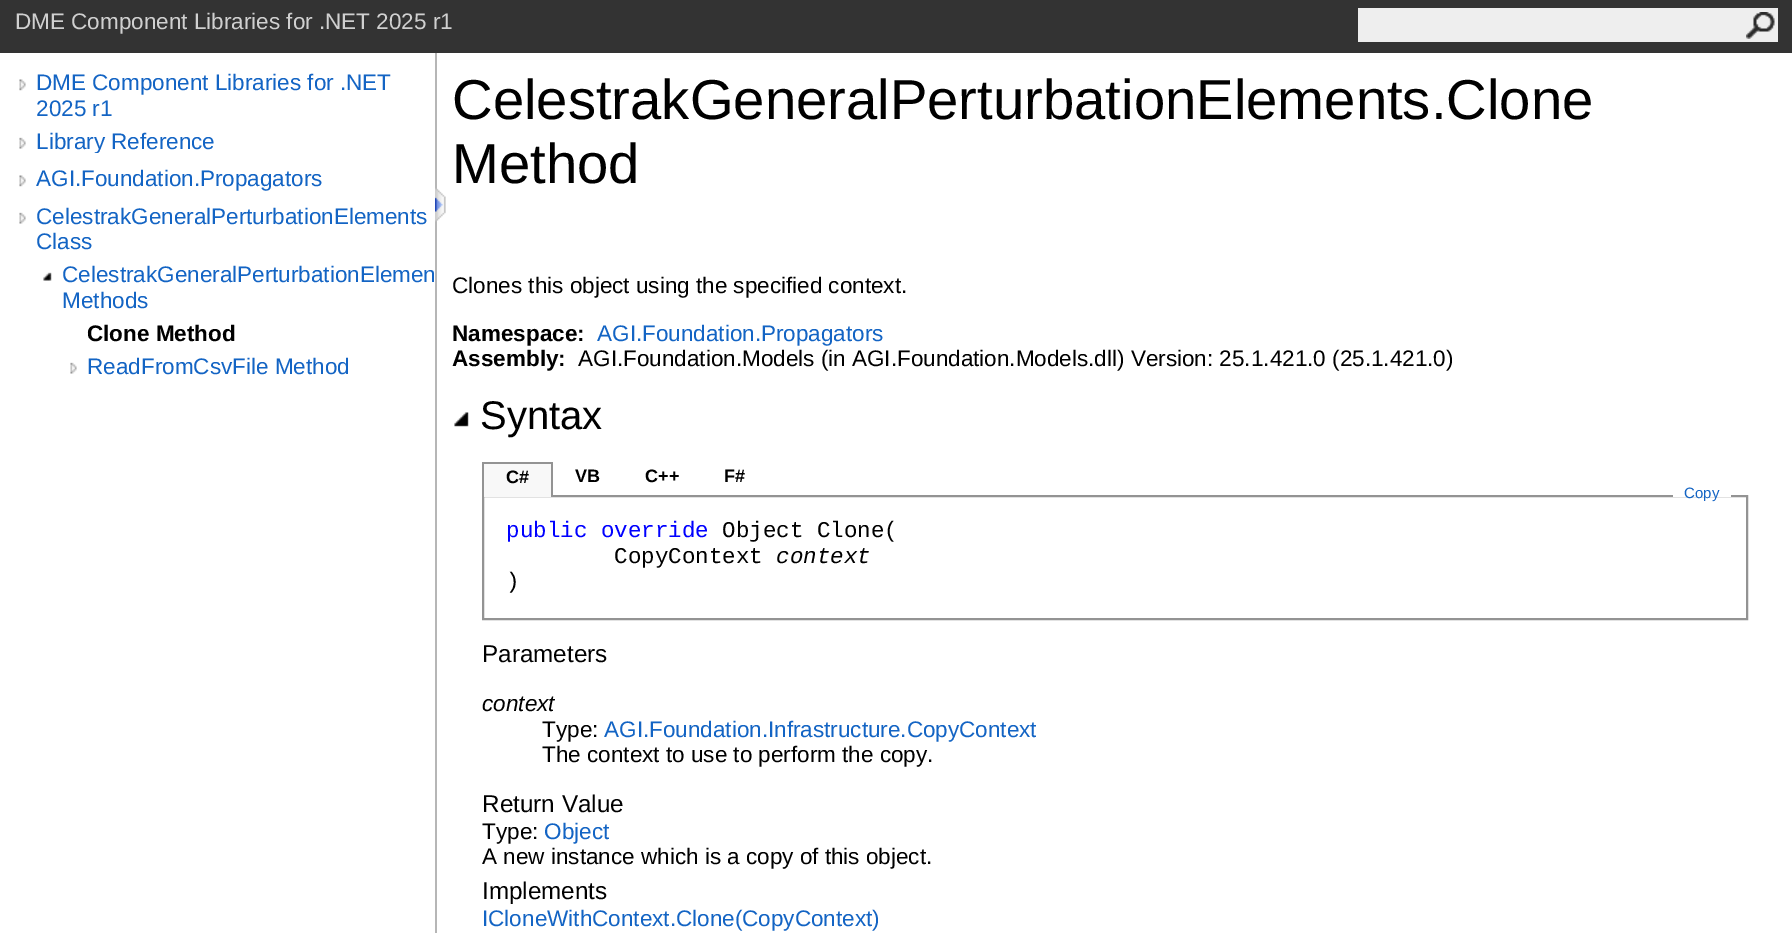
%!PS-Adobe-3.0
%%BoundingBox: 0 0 1792 933
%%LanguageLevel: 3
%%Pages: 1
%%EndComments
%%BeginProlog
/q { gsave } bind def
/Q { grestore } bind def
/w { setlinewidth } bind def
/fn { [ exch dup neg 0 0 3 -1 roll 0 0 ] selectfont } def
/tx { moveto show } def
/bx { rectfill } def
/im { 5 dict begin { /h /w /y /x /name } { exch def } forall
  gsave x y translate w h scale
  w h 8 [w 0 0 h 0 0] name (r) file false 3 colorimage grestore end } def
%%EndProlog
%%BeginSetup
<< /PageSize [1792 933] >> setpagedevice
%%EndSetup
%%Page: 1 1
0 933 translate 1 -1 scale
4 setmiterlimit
1 setgray
0 0 1792 933 bx
0.2 setgray
0 0 1792 53 bx
/LiberationSans-Regular 22.5 fn
0.816 setgray
(DME Component Libraries for .NET 2025 r1) 15 29 tx
0.933 setgray
1358 8 420 34 bx
(image0.raw) 1746 12 29 27 im
0.714 setgray
435 53 2 880 bx
(image1.raw) 19 79 7 12 im
0.075 0.392 0.769 setrgbcolor
(DME Component Libraries for .NET) 36 90 tx
(2025 r1) 36 116 tx
(image2.raw) 19 137 7 12 im
q
36 128 399 25 rectclip
(Library Reference) 36 149 tx
Q
(image1.raw) 19 175 7 12 im
(AGI.Foundation.Propagators) 36 186 tx
(image2.raw) 19 212 7 12 im
(CelestrakGeneralPerturbationElements) 36 224 tx
(Class) 36 249 tx
(image3.raw) 43 272 9 9 im
(CelestrakGeneralPerturbationElemen) 62 282 tx
(Methods) 62 308 tx
/LiberationSans-Bold 22.5 fn
0 setgray
(Clone Method) 87 341 tx
(image2.raw) 70 362 7 12 im
/LiberationSans-Regular 22.5 fn
0.075 0.392 0.769 setrgbcolor
(ReadFromCsvFile Method) 87 374 tx
(image4.raw) 435 188 11 34 im
/LiberationSans-Regular 56.25 fn
0 setgray
(CelestrakGeneralPerturbationElements.Clone) 452 119 tx
(Method) 452 183 tx
/LiberationSans-Regular 22.5 fn
(Clones this object using the specified context.) 452 293 tx
/LiberationSans-Bold 22.5 fn
(Namespace:) 452 341 tx
/LiberationSans-Regular 22.5 fn
0.075 0.392 0.769 setrgbcolor
(AGI.Foundation.Propagators) 597 341 tx
/LiberationSans-Bold 22.5 fn
0 setgray
(Assembly:) 452 366 tx
/LiberationSans-Regular 22.5 fn
(AGI.Foundation.Models \(in AGI.Foundation.Models.dll\) Version: 25.1.421.0 \(25.1.421.0\)) 578 366 tx
(image5.raw) 454 412 15 15 im
/LiberationSans-Regular 40 fn
(Syntax) 480 429 tx
0.576 setgray
2 w
483 496 1264 123 rectstroke
0.973 setgray
484 464 67 33 bx
0.576 setgray
482 462 70 2 bx
551 462 2 35 bx
482 462 2 35 bx
/LiberationSans-Bold 18 fn
0 setgray
(C#) 506 483 tx
(VB) 575 482 tx
(C++) 645 482 tx
(F#) 724 482 tx
1 setgray
1673 495 58 2 bx
/LiberationSans-Regular 15 fn
0.075 0.392 0.769 setrgbcolor
(Copy) 1684 498 tx
/LiberationMono-Regular 22.5 fn
0 0 1 setrgbcolor
(public override) 506 537 tx
0 setgray
(Object Clone\() 722 537 tx
(CopyContext) 614 563 tx
/LiberationMono-Italic 22.5 fn
(context) 776 563 tx
/LiberationMono-Regular 22.5 fn
(\)) 506 588 tx
/LiberationSans-Regular 24.25 fn
(Parameters) 482 662 tx
/LiberationSans-Italic 22.5 fn
(context) 482 711 tx
/LiberationSans-Regular 22.5 fn
(Type:) 542 737 tx
0.075 0.392 0.769 setrgbcolor
(AGI.Foundation.Infrastructure.CopyContext) 604 737 tx
0 setgray
(The context to use to perform the copy.) 542 762 tx
/LiberationSans-Regular 24.25 fn
(Return Value) 482 812 tx
/LiberationSans-Regular 22.5 fn
(Type:) 482 839 tx
0.075 0.392 0.769 setrgbcolor
(Object) 544 839 tx
0 setgray
(A new instance which is a copy of this object.) 482 864 tx
/LiberationSans-Regular 24.25 fn
(Implements) 482 899 tx
/LiberationSans-Regular 22.5 fn
0.075 0.392 0.769 setrgbcolor
(ICloneWithContext.Clone\(CopyContext\)) 482 926 tx
showpage
%%EOF
